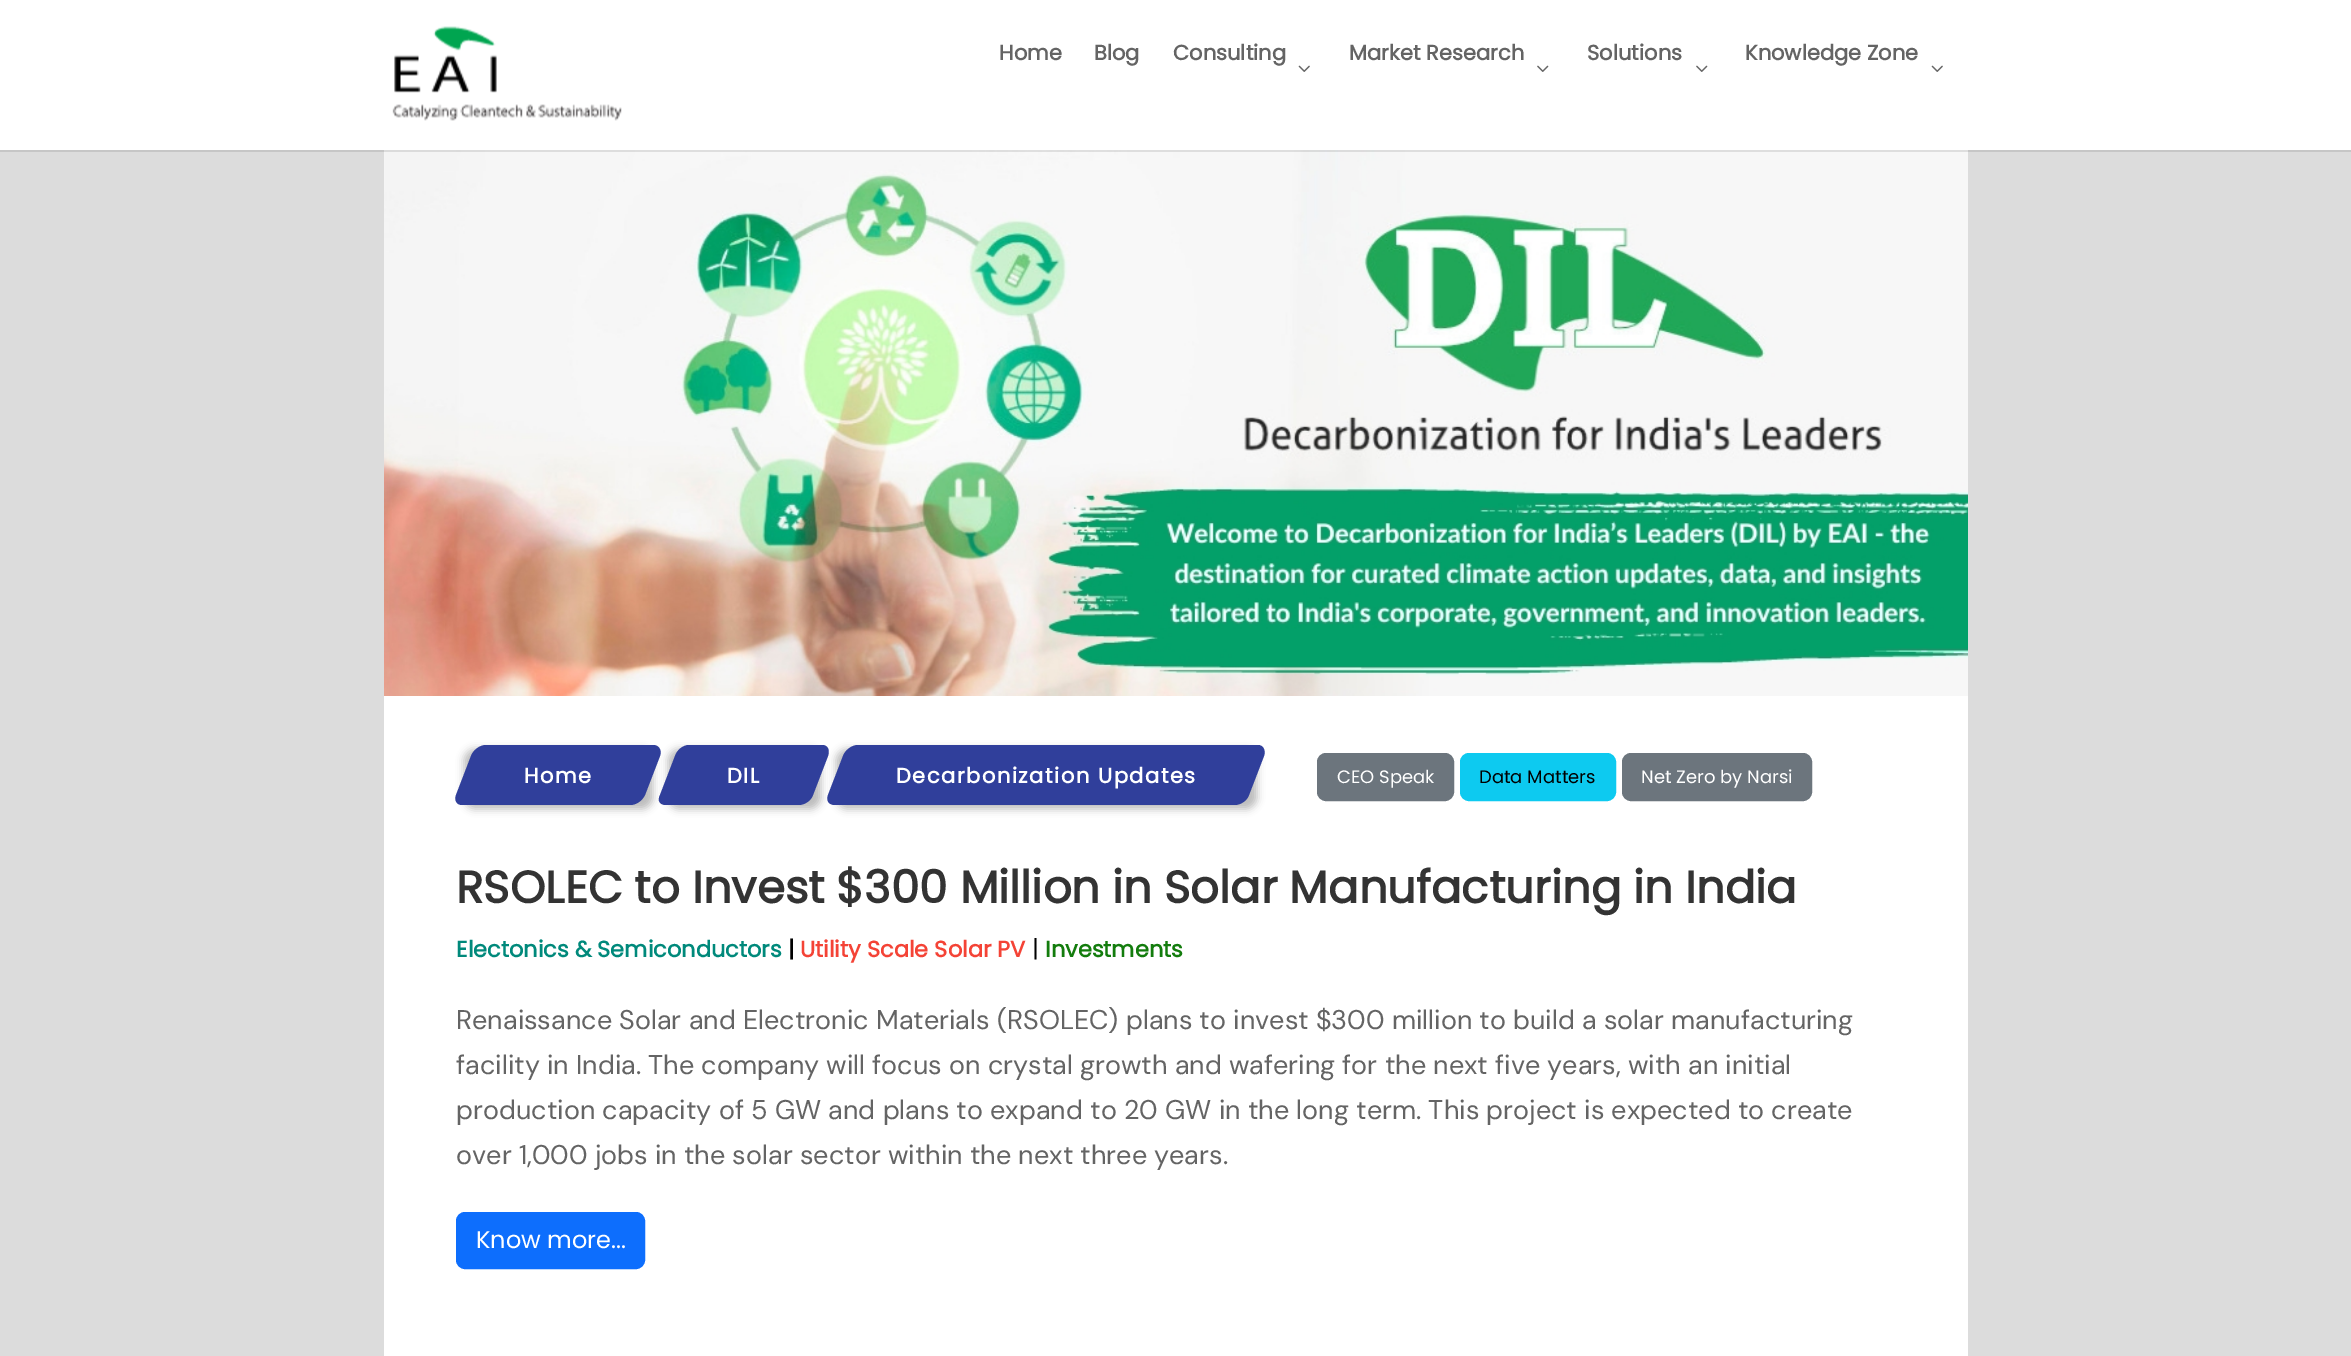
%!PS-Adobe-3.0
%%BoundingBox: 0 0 2351 1356
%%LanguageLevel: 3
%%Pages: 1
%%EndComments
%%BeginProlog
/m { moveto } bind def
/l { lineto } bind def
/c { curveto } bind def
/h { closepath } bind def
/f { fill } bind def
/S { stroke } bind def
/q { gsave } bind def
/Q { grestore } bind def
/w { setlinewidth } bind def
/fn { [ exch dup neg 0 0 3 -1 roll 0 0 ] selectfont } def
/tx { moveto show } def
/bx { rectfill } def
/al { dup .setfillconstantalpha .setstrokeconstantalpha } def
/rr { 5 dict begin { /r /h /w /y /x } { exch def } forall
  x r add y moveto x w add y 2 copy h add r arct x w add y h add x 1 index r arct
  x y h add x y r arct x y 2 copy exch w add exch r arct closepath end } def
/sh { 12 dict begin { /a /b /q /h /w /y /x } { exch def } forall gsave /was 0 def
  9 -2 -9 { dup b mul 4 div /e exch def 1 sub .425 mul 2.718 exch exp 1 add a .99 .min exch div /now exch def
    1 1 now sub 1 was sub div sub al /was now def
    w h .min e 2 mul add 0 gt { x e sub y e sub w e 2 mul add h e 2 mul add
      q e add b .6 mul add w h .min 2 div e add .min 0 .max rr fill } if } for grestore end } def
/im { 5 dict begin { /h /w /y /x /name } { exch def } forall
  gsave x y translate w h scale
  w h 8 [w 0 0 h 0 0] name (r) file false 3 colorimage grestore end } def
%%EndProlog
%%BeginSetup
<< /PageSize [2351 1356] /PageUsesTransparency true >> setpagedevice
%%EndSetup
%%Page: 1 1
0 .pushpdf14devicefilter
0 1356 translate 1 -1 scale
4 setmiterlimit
0.863 setgray
0 0 2351 1356 bx
(image3.raw) 384 150 1584 546 im
0.1 al
0 setgray
0 150 2351 2 bx
1 al
1 setgray
0 0 2351 150 bx
(image0.raw) 392 26 230 95 im
/Poppins-Bold 21 fn
0.392 setgray
(Home) 999 60 tx
(Blog) 1094 60 tx
(Consulting) 1173 60 tx
(image1.raw) 1298 65 12 7 im
(Market Research) 1349 60 tx
(image2.raw) 1537 65 12 7 im
(Solutions) 1587 60 tx
(image2.raw) 1696 65 12 7 im
(Knowledge Zone) 1745 60 tx
(image1.raw) 1931 65 12 7 im
1 setgray
384 696 1584 660 bx
0 setgray
464 749 189 60 11 4 0.26 sh
0.188 0.247 0.608 setrgbcolor
486 745 m 653 745 l 659 745 662 750 660 756 c 645 795 l 642 801 636 805 630 805 c 462 805 l 457 805 454 801 456 795 c 471 756 l 473 750 480 745 486 745 c h f
1 setgray
524 783 m 1.5 0 (Home) ashow
0 setgray
668 749 153 60 11 4 0.26 sh
0.188 0.247 0.608 setrgbcolor
689 745 m 822 745 l 828 745 830 750 828 756 c 813 795 l 811 801 804 805 799 805 c 666 805 l 660 805 657 801 660 795 c 675 756 l 677 750 683 745 689 745 c h f
1 setgray
727 783 m 1.5 0 (DIL) ashow
0 setgray
836 749 421 60 11 4 0.26 sh
0.188 0.247 0.608 setrgbcolor
858 745 m 1258 745 l 1263 745 1266 750 1264 756 c 1249 795 l 1247 801 1240 805 1235 805 c 835 805 l 829 805 826 801 828 795 c 843 756 l 845 750 852 745 858 745 c h f
1 setgray
896 783 m 1.5 0 (Decarbonization Updates) ashow
0.424 0.459 0.49 setrgbcolor
1318 754 135 46 8 rr q f Q
2 w
S
/Poppins-Regular 18 fn
1 setgray
(CEO Speak) 1337 783 tx
0.051 0.792 0.941 setrgbcolor
1461 754 154 46 8 rr q f Q
S
0 setgray
(Data Matters) 1479 783 tx
0.424 0.459 0.49 setrgbcolor
1623 754 188 46 8 rr q f Q
S
1 setgray
(Net Zero by Narsi) 1641 783 tx
/Poppins-Bold 45 fn
0.2 setgray
(RSOLEC to Invest $300 Million in Solar Manufacturing in India) 456 903 tx
/Poppins-Bold 22.5 fn
0 0.537 0.482 setrgbcolor
(Electonics & Semiconductors) 456 957 tx
0 setgray
(|) 788 957 tx
0.957 0.263 0.212 setrgbcolor
(Utility Scale Solar PV) 800 957 tx
/Poppins-Regular 24 fn
0 setgray
(|) 1032 957 tx
/Poppins-Bold 22.5 fn
0.075 0.486 0.051 setrgbcolor
(Investments) 1045 957 tx
/DMSans-Regular 27 fn
0.392 setgray
(Renaissance Solar and Electronic Materials \(RSOLEC\) plans to invest $300 million to build a solar manufacturing) 456 1029 tx
(facility in India. The company will focus on crystal growth and wafering for the next five years, with an initial) 456 1074 tx
(production capacity of 5 GW and plans to expand to 20 GW in the long term. This project is expected to create) 456 1119 tx
(over 1,000 jobs in the solar sector within the next three years.) 456 1164 tx
0.051 0.431 0.992 setrgbcolor
457 1213 187 55 8 rr q f Q
S
/Poppins-Regular 24 fn
1 setgray
(Know more...) 476 1248 tx
.poppdf14devicefilter showpage
%%EOF
